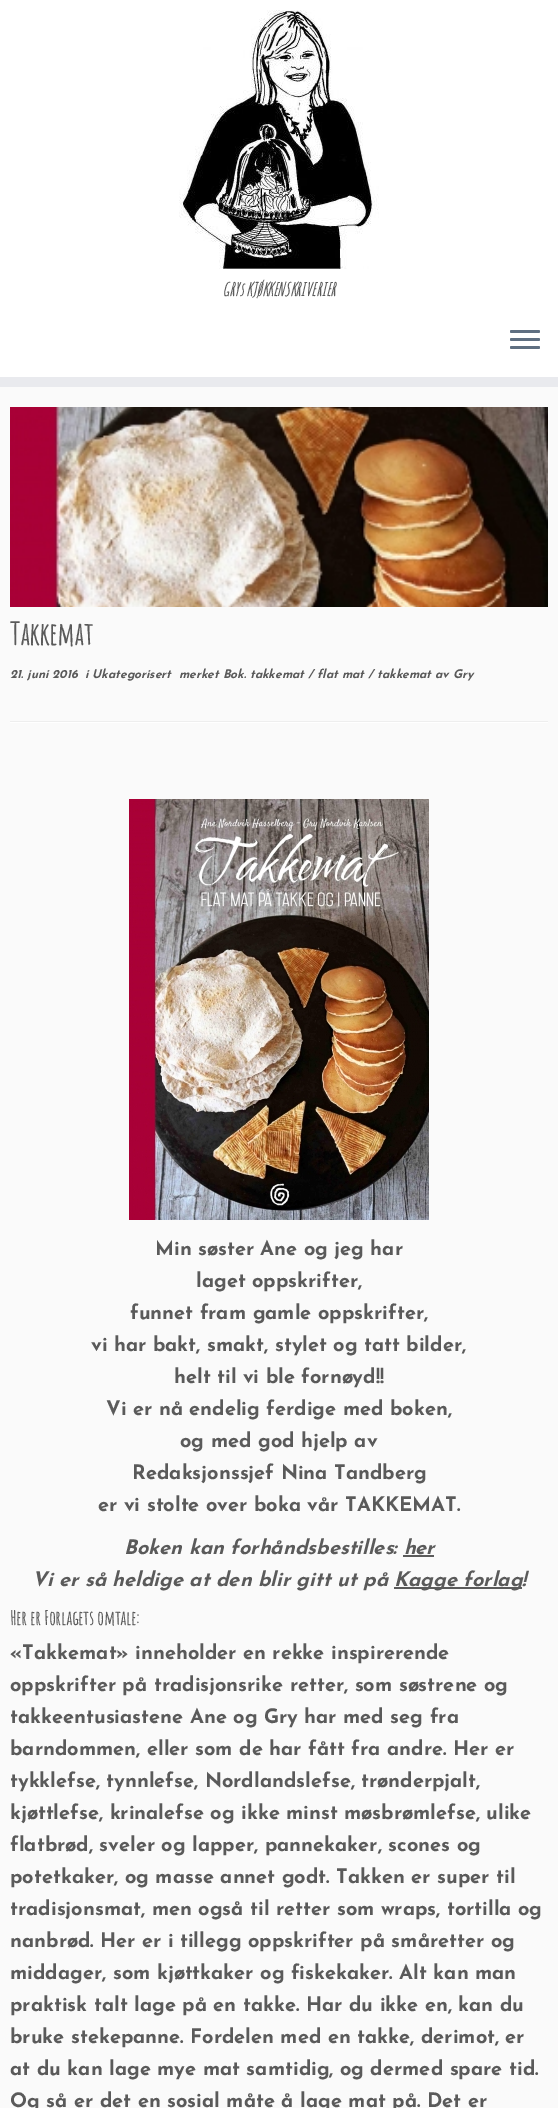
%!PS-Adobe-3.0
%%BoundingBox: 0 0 558 2108
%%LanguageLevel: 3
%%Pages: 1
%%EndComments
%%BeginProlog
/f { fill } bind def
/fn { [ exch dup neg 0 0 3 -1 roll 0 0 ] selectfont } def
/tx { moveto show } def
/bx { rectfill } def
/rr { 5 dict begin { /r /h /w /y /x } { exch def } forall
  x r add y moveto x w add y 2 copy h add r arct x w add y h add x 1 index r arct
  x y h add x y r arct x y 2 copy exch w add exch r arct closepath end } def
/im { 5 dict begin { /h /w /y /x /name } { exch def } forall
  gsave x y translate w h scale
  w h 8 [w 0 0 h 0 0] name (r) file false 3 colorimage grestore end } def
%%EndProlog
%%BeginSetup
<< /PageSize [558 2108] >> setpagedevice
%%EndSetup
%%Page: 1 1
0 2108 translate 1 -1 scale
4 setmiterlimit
0.98 setgray
0 0 558 2108 bx
1 setgray
0 0 558 377 bx
0.914 0.918 0.933 setrgbcolor
0 377 558 10 bx
(image0.raw) 179 10 200 259 im
/AmaticSC-BoldItalic 18 fn
0.353 setgray
(GRYs KJØKKENSKRIVERIER) 222 296 tx
0.373 0.435 0.506 setrgbcolor
510 330 30 3 1.5 rr f
510 338 30 3 1.5 rr f
510 346 30 3 1.5 rr f
(image1.raw) 10 407 538 200 im
/AmaticSC-Bold 30.5 fn
0.353 setgray
(Takkemat) 10 645 tx
/JosefinSans-ThinItalic 12 fn
(21. juni 2016) 10 678 tx
(i Ukategorisert) 85 678 tx
(merket Bok. takkemat / flat mat / takkemat av Gry) 179 678 tx
0.933 setgray
10 721 538 1 bx
1 setgray
10 722 538 1 bx
(image2.raw) 129 799 300 421 im
/JosefinSans-Thin 20 fn
0.353 setgray
(Min søster Ane og jeg har) 155 1255 tx
(laget oppskrifter,) 196 1287 tx
(funnet fram gamle oppskrifter,) 130 1319 tx
(vi har bakt, smakt, stylet og tatt bilder,) 91 1351 tx
(helt til vi ble fornøyd!!) 174 1383 tx
(Vi er nå endelig ferdige med boken,) 106 1415 tx
(og med god hjelp av) 180 1447 tx
(Redaksjonssjef Nina Tandberg) 132 1479 tx
(er vi stolte over boka vår TAKKEMAT.) 98 1511 tx
/JosefinSans-ThinItalic 20 fn
(Boken kan forhåndsbestilles: her) 124 1554 tx
403 1555 31 2 bx
(Vi er så heldige at den blir gitt ut på) 32 1586 tx
394 1587 128 2 bx
(Kagge forlag!) 394 1586 tx
/AmaticSC-Bold 19.25 fn
(Her er Forlagets omtale:) 10 1625 tx
/JosefinSans-Thin 20 fn
(«Takkemat» inneholder en rekke inspirerende) 10 1659 tx
(oppskrifter på tradisjonsrike retter, som søstrene og) 10 1691 tx
(takkeentusiastene Ane og Gry har med seg fra) 10 1723 tx
(barndommen, eller som de har fått fra andre. Her er) 10 1755 tx
(tykklefse, tynnlefse, Nordlandslefse, trønderpjalt,) 10 1787 tx
(kjøttlefse, krinalefse og ikke minst møsbrømlefse, ulike) 10 1819 tx
(flatbrød, sveler og lapper, pannekaker, scones og) 10 1851 tx
(potetkaker, og masse annet godt. Takken er super til) 10 1883 tx
(tradisjonsmat, men også til retter som wraps, tortilla og) 10 1915 tx
(nanbrød. Her er i tillegg oppskrifter på småretter og) 10 1947 tx
(middager, som kjøttkaker og fiskekaker. Alt kan man) 10 1979 tx
(praktisk talt lage på en takke. Har du ikke en, kan du) 10 2011 tx
(bruke stekepanne. Fordelen med en takke, derimot, er) 10 2043 tx
(at du kan lage mye mat samtidig, og dermed spare tid.) 10 2075 tx
(Og så er det en sosial måte å lage mat på. Det er) 10 2107 tx
showpage
%%EOF
